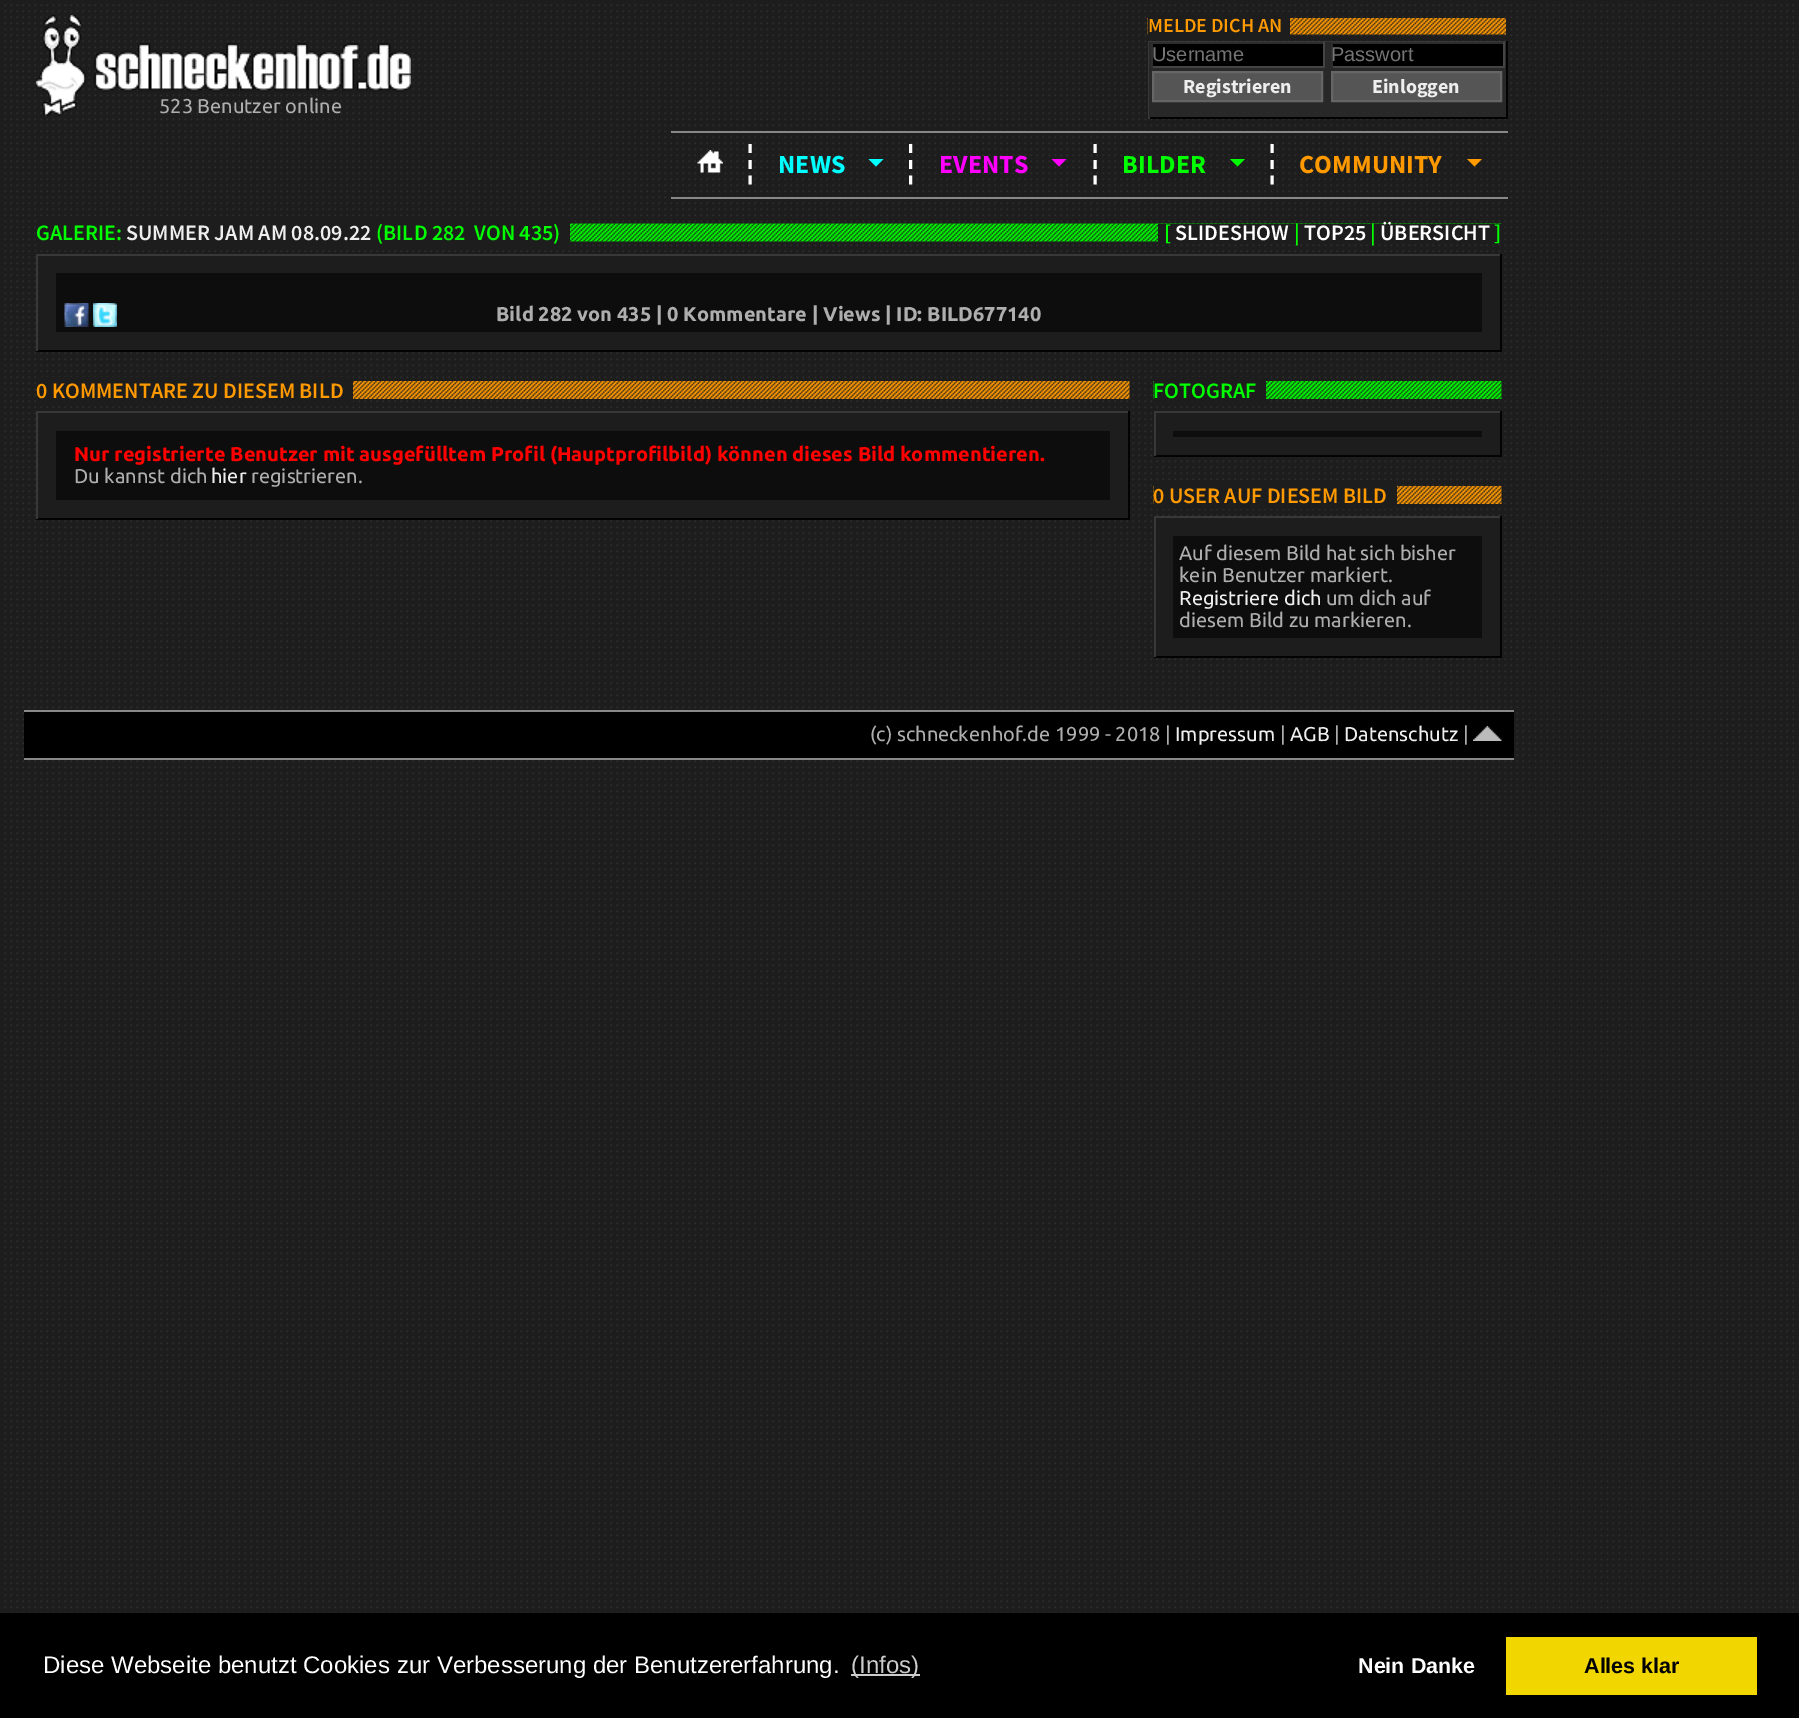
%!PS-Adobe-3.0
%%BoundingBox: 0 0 1799 1718
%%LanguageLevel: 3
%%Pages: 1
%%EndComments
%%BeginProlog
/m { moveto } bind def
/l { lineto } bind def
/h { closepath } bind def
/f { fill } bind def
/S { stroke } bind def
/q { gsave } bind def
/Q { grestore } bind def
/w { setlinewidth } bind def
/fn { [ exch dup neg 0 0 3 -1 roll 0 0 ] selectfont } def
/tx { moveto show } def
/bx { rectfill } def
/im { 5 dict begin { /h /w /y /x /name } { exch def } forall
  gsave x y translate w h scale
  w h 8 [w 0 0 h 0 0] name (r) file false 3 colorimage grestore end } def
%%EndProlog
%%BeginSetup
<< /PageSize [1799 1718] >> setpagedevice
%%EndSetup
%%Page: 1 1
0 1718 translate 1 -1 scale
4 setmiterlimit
0.114 setgray
0 0 1799 1718 bx
(image0.raw) 4 4 1795 1609 im
(image1.raw) 1147 18 359 17 im
1148 12 142 25 bx
/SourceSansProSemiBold-SemiBold 20 fn
1 0.6 0 setrgbcolor
(MELDE DICH AN) 1148 32 tx
0.22 setgray
1148 41 360 1 bx
0.012 setgray
1506 41 2 78 bx
1148 117 360 2 bx
0.22 setgray
1148 41 2 78 bx
0.157 setgray
1149 42 357 75 bx
0 setgray
1153 44 170 22 bx
0.176 setgray
1151 42 174 2 bx
0.267 setgray
1323 42 2 26 bx
1151 66 174 2 bx
0.176 setgray
1151 42 2 26 bx
/LiberationSans-Regular 20 fn
0.459 setgray
(Username) 1152 61 tx
0 setgray
1333 44 170 22 bx
0.176 setgray
1331 42 174 2 bx
0.267 setgray
1503 42 2 26 bx
1331 66 174 2 bx
0.176 setgray
1331 42 2 26 bx
0.459 setgray
(Passwort) 1331 61 tx
0.333 setgray
1153 72 m 1322 72 l 1322 101 l 1153 101 l h q f Q
0.4 setgray
2 w
S
/SourceSansPro-Bold 20 fn
0.933 setgray
(Registrieren) 1183 93 tx
0.333 setgray
1332 72 m 1501 72 l 1501 101 l 1332 101 l h q f Q
0.4 setgray
S
0.933 setgray
(Einloggen) 1372 93 tx
(image2.raw) 36 15 375 101 im
/Ubuntu-Regular 20 fn
0.682 setgray
(523 Benutzer online) 159 113 tx
0.533 setgray
671 131 837 2 bx
671 197 837 2 bx
(image3.raw) 697 150 26 23 im
1 setgray
3 w
750 144 m 750 153 l 750 160 m 750 169 l 750 175.5 m 750 184.5 l S
/SourceSansPro-Bold 26 fn
0 1 1 setrgbcolor
(NEWS) 778 173 tx
868.5 159 m 883.5 159 l 876 166.5 l h f
1 setgray
910.5 144 m 910.5 153 l 910.5 160 m 910.5 169 l 910.5 175.5 m 910.5 184.5 l S
1 0 1 setrgbcolor
(EVENTS) 939 173 tx
1051.5 159 m 1066.5 159 l 1059 166.5 l h f
1 setgray
1095 144 m 1095 153 l 1095 160 m 1095 169 l 1095 175.5 m 1095 184.5 l S
0 1 0 setrgbcolor
(BILDER) 1122 173 tx
1230 159 m 1245 159 l 1237.5 166.5 l h f
1 setgray
1272 144 m 1272 153 l 1272 160 m 1272 169 l 1272 175.5 m 1272 184.5 l S
1 0.6 0 setrgbcolor
(COMMUNITY) 1299 173 tx
1467 159 m 1482 159 l 1474.5 166.5 l h f
(image4.raw) 570 223 932 19 im
0.114 setgray
36 220 396 26 bx
/SourceSansProSemiBold-SemiBold 22 fn
0 1 0 setrgbcolor
(GALERIE:) 36 240 tx
0.933 setgray
(SUMMER JAM AM 08.09.22) 126 240 tx
0.114 setgray
432 220 138 26 bx
0 1 0 setrgbcolor
(\(BILD 282) 376 240 tx
(VON 435\)) 474 240 tx
0.114 setgray
1158 224 344 18 bx
0 1 0 setrgbcolor
([) 1164 240 tx
1 setgray
(SLIDESHOW) 1175 240 tx
0 1 0 setrgbcolor
(|) 1294 240 tx
1 setgray
(TOP25) 1304 240 tx
0 1 0 setrgbcolor
(|) 1370 240 tx
1 setgray
(ÜBERSICHT) 1380 240 tx
0 1 0 setrgbcolor
(]) 1494 240 tx
0.114 setgray
40 256 1460 93 bx
0.22 setgray
36 254 1466 2 bx
0.012 setgray
1500 254 2 97 bx
36 350 1466 2 bx
0.22 setgray
36 254 2 97 bx
0.051 setgray
56 273 1426 59 bx
(image5.raw) 64 303 25 24 im
(image6.raw) 93 303 24 24 im
/Ubuntu-Bold 20 fn
0.682 setgray
(Bild 282 von 435 | 0 Kommentare | Views | ID: BILD677140) 496 321 tx
(image7.raw) 353 381 777 18 im
0.114 setgray
36 377 317 26 bx
/SourceSansProSemiBold-SemiBold 22 fn
1 0.6 0 setrgbcolor
(0 KOMMENTARE ZU DIESEM BILD) 36 398 tx
0.114 setgray
40 413 1088 104 bx
0.22 setgray
36 411 1094 2 bx
0.012 setgray
1128 411 2 108 bx
36 518 1094 2 bx
0.22 setgray
36 411 2 108 bx
0.051 setgray
56 431 1054 69 bx
/Ubuntu-Bold 20 fn
1 0 0 setrgbcolor
(Nur registrierte Benutzer mit ausgefülltem Profil \(Hauptprofilbild\) können dieses Bild kommentieren.) 74 461 tx
/Ubuntu-Regular 20 fn
0.682 setgray
(Du kannst dich) 74 483 tx
0.933 setgray
(hier) 211 483 tx
0.682 setgray
(registrieren.) 251 483 tx
(image8.raw) 1153 381 349 18 im
0.114 setgray
1154 377 112 26 bx
/SourceSansProSemiBold-SemiBold 22 fn
0 1 0 setrgbcolor
(FOTOGRAF) 1153 398 tx
0.114 setgray
1156 413 344 42 bx
0.22 setgray
1154 411 348 2 bx
0.012 setgray
1500 411 2 45 bx
1154 455 348 2 bx
0.22 setgray
1154 411 2 45 bx
0.051 setgray
1173 431 309 6 bx
(image9.raw) 1153 486 349 18 im
0.114 setgray
1154 484 243 25 bx
1 0.6 0 setrgbcolor
(0 USER AUF DIESEM BILD) 1153 503 tx
0.114 setgray
1156 520 344 135 bx
0.22 setgray
1154 516 348 2 bx
0.012 setgray
1500 516 2 141 bx
1154 656 348 2 bx
0.22 setgray
1154 516 2 141 bx
0.051 setgray
1173 536 309 102 bx
/Ubuntu-Regular 20 fn
0.682 setgray
(Auf diesem Bild hat sich bisher) 1179 560 tx
(kein Benutzer markiert.) 1179 582 tx
0.933 setgray
(Registriere dich) 1179 605 tx
0.682 setgray
(um dich auf) 1326 605 tx
(diesem Bild zu markieren.) 1179 627 tx
0 setgray
24 712 1490 46 bx
0.533 setgray
24 710 1490 2 bx
24 758 1490 2 bx
0.682 setgray
(\(c\) schneckenhof.de 1999 - 2018 |) 870 741 tx
0.933 setgray
(Impressum) 1175 741 tx
0.682 setgray
(|) 1280 741 tx
0.933 setgray
(AGB) 1290 741 tx
0.682 setgray
(|) 1334 741 tx
0.933 setgray
(Datenschutz) 1344 741 tx
0.682 setgray
(|) 1463 741 tx
(image10.raw) 1473 726 29 15 im
0 setgray
0 1613 1799 105 bx
/LiberationSans-Regular 24 fn
1 setgray
(Diese Webseite benutzt Cookies zur Verbesserung der Benutzererfahrung.) 43 1673 tx
0.8 setgray
851 1674 69 2 bx
(\(Infos\)) 851 1673 tx
/LiberationSans-Bold 21.5 fn
1 setgray
(Nein Danke) 1358 1673 tx
0.945 0.839 0 setrgbcolor
1506 1637 251 58 bx
0 setgray
(Alles klar) 1584 1673 tx
showpage
%%EOF
